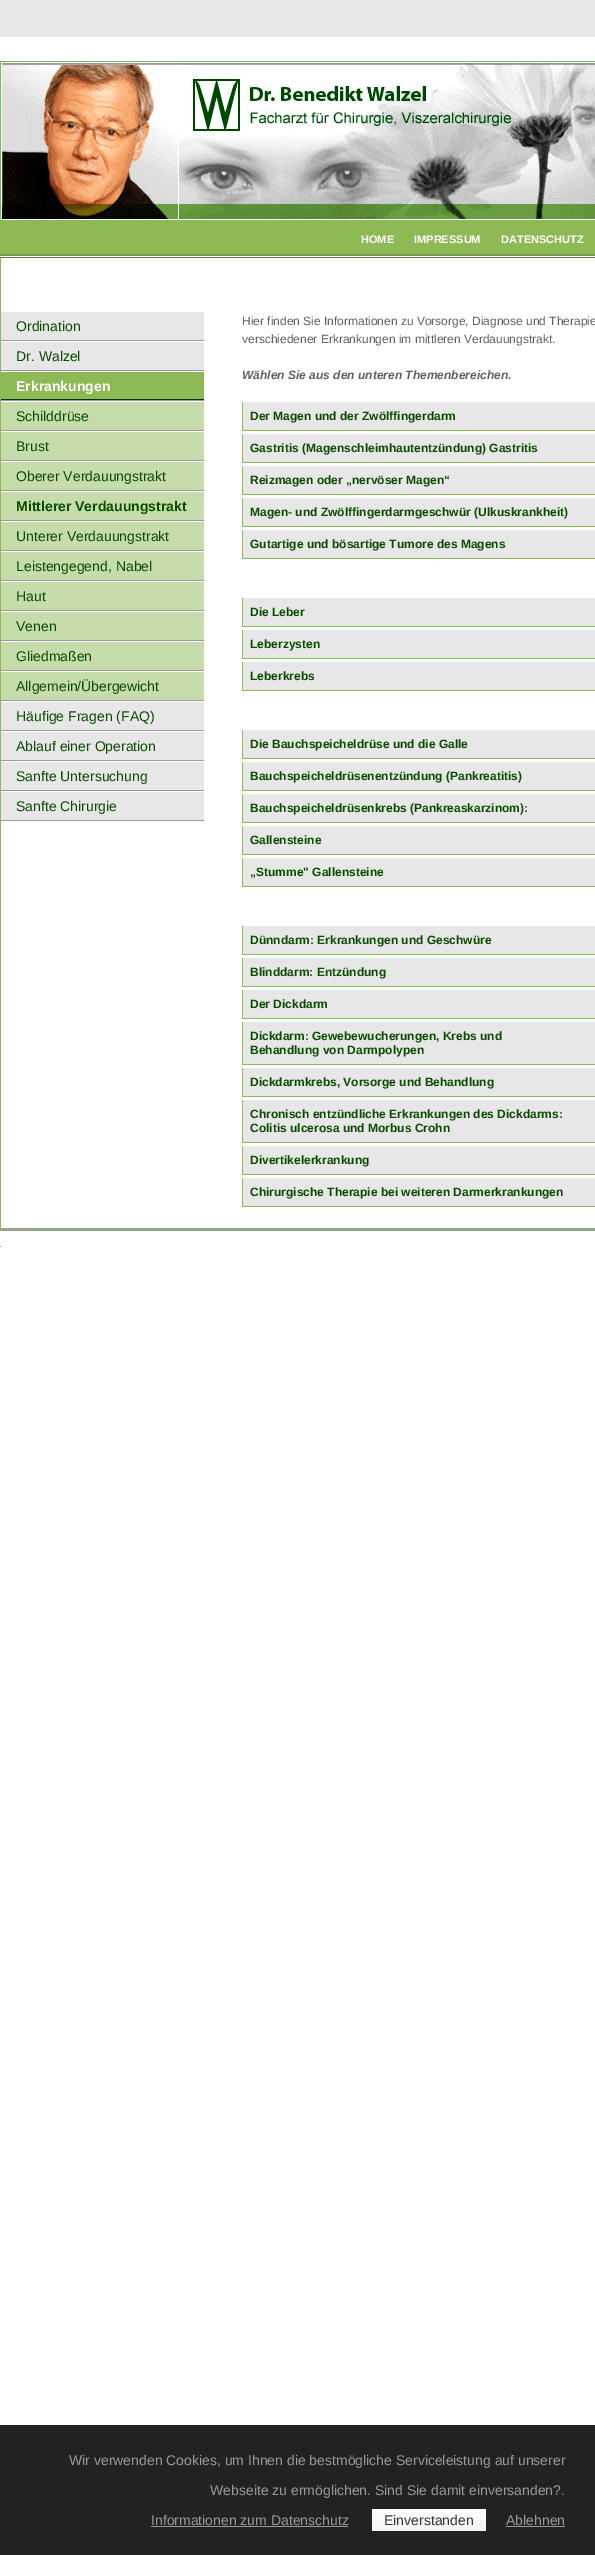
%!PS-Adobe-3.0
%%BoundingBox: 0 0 595 2555
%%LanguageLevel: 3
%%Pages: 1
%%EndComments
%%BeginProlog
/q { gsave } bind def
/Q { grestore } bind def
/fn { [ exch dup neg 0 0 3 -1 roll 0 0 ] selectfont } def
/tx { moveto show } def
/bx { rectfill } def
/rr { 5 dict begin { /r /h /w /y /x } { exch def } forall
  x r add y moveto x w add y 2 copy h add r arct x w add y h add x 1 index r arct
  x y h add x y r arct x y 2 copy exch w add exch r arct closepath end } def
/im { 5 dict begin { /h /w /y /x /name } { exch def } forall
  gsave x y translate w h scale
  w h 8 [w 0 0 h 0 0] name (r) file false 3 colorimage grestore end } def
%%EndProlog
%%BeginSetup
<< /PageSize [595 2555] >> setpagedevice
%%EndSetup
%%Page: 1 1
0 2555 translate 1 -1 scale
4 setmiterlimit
1 setgray
0 0 595 2555 bx
(image0.raw) 0 220 595 38 im
0.906 setgray
0 0 595 37 bx
(image1.raw) 0 37 595 182 im
/LiberationSans-Bold 11 fn
1 setgray
(HOME) 361 243 tx
(IMPRESSUM) 414 243 tx
(DATENSCHUTZ) 501 243 tx
0.557 0.729 0.333 setrgbcolor
0 258 1 989 bx
0.906 setgray
1 312 203 28 bx
0.6 setgray
1 340 203 1 bx
/LiberationSans-Regular 14 fn
0.043 0.294 0.008 setrgbcolor
(Ordination) 16 331 tx
0.906 setgray
1 342 203 28 bx
0.6 setgray
1 370 203 1 bx
0.043 0.294 0.008 setrgbcolor
(Dr. Walzel) 16 361 tx
(image2.raw) 1 372 203 28 im
0.6 setgray
1 400 203 1 bx
/LiberationSans-Bold 14 fn
1 setgray
(Erkrankungen) 16 391 tx
0.776 0.863 0.667 setrgbcolor
1 402 203 28 bx
0.6 setgray
1 430 203 1 bx
/LiberationSans-Regular 14 fn
0.043 0.294 0.008 setrgbcolor
(Schilddrüse) 16 421 tx
0.776 0.863 0.667 setrgbcolor
1 432 203 28 bx
0.6 setgray
1 460 203 1 bx
0.043 0.294 0.008 setrgbcolor
(Brust) 16 451 tx
0.776 0.863 0.667 setrgbcolor
1 462 203 28 bx
0.6 setgray
1 490 203 1 bx
0.043 0.294 0.008 setrgbcolor
(Oberer Verdauungstrakt) 16 481 tx
0.776 0.863 0.667 setrgbcolor
1 492 203 28 bx
0.6 setgray
1 520 203 1 bx
/LiberationSans-Bold 14 fn
0.043 0.294 0.008 setrgbcolor
(Mittlerer Verdauungstrakt) 16 511 tx
0.776 0.863 0.667 setrgbcolor
1 522 203 28 bx
0.6 setgray
1 550 203 1 bx
/LiberationSans-Regular 14 fn
0.043 0.294 0.008 setrgbcolor
(Unterer Verdauungstrakt) 16 541 tx
0.776 0.863 0.667 setrgbcolor
1 552 203 28 bx
0.6 setgray
1 580 203 1 bx
0.043 0.294 0.008 setrgbcolor
(Leistengegend, Nabel) 16 571 tx
0.776 0.863 0.667 setrgbcolor
1 582 203 28 bx
0.6 setgray
1 610 203 1 bx
0.043 0.294 0.008 setrgbcolor
(Haut) 16 601 tx
0.776 0.863 0.667 setrgbcolor
1 612 203 28 bx
0.6 setgray
1 640 203 1 bx
0.043 0.294 0.008 setrgbcolor
(Venen) 16 631 tx
0.776 0.863 0.667 setrgbcolor
1 642 203 28 bx
0.6 setgray
1 670 203 1 bx
0.043 0.294 0.008 setrgbcolor
(Gliedmaßen) 16 661 tx
0.776 0.863 0.667 setrgbcolor
1 672 203 28 bx
0.6 setgray
1 700 203 1 bx
0.043 0.294 0.008 setrgbcolor
(Allgemein/Übergewicht) 16 691 tx
0.906 setgray
1 702 203 28 bx
0.6 setgray
1 730 203 1 bx
0.043 0.294 0.008 setrgbcolor
(Häufige Fragen \(FAQ\)) 16 721 tx
0.906 setgray
1 732 203 28 bx
0.6 setgray
1 760 203 1 bx
0.043 0.294 0.008 setrgbcolor
(Ablauf einer Operation) 16 751 tx
0.906 setgray
1 762 203 28 bx
0.6 setgray
1 790 203 1 bx
0.043 0.294 0.008 setrgbcolor
(Sanfte Untersuchung) 16 781 tx
0.906 setgray
1 792 203 28 bx
0.6 setgray
1 820 203 1 bx
0.043 0.294 0.008 setrgbcolor
(Sanfte Chirurgie) 16 811 tx
/LiberationSans-Regular 12 fn
0.376 setgray
(Hier finden Sie Informationen zu Vorsorge, Diagnose und Therapie) 242 325 tx
(verschiedener Erkrankungen im mittleren Verdauungstrakt.) 242 343 tx
/LiberationSans-BoldItalic 12 fn
(Wählen Sie aus den unteren Themenbereichen.) 242 379 tx
0.906 setgray
243 402 352 28 bx
0.557 0.729 0.333 setrgbcolor
242 430 353 1 bx
242 402 1 29 bx
/LiberationSans-Bold 12 fn
0.043 0.294 0.008 setrgbcolor
(Der Magen und der Zwölffingerdarm) 250 420 tx
0.906 setgray
243 434 352 28 bx
0.557 0.729 0.333 setrgbcolor
242 462 353 1 bx
242 434 1 29 bx
0.043 0.294 0.008 setrgbcolor
(Gastritis \(Magenschleimhautentzündung\) Gastritis) 250 452 tx
0.906 setgray
243 466 352 28 bx
0.557 0.729 0.333 setrgbcolor
242 494 353 1 bx
242 466 1 29 bx
0.043 0.294 0.008 setrgbcolor
(Reizmagen oder „nervöser Magen“) 250 484 tx
0.906 setgray
243 498 352 28 bx
0.557 0.729 0.333 setrgbcolor
242 526 353 1 bx
242 498 1 29 bx
0.043 0.294 0.008 setrgbcolor
(Magen- und Zwölffingerdarmgeschwür \(Ulkuskrankheit\)) 250 516 tx
0.906 setgray
243 530 352 28 bx
0.557 0.729 0.333 setrgbcolor
242 558 353 1 bx
242 530 1 29 bx
0.043 0.294 0.008 setrgbcolor
(Gutartige und bösartige Tumore des Magens) 250 548 tx
0.906 setgray
243 598 352 28 bx
0.557 0.729 0.333 setrgbcolor
242 626 353 1 bx
242 598 1 29 bx
0.043 0.294 0.008 setrgbcolor
(Die Leber) 250 616 tx
0.906 setgray
243 630 352 28 bx
0.557 0.729 0.333 setrgbcolor
242 658 353 1 bx
242 630 1 29 bx
0.043 0.294 0.008 setrgbcolor
(Leberzysten) 250 648 tx
0.906 setgray
243 662 352 28 bx
0.557 0.729 0.333 setrgbcolor
242 690 353 1 bx
242 662 1 29 bx
0.043 0.294 0.008 setrgbcolor
(Leberkrebs) 250 680 tx
0.906 setgray
243 730 352 28 bx
0.557 0.729 0.333 setrgbcolor
242 758 353 1 bx
242 730 1 29 bx
0.043 0.294 0.008 setrgbcolor
(Die Bauchspeicheldrüse und die Galle) 250 748 tx
0.906 setgray
243 762 352 28 bx
0.557 0.729 0.333 setrgbcolor
242 790 353 1 bx
242 762 1 29 bx
0.043 0.294 0.008 setrgbcolor
(Bauchspeicheldrüsenentzündung \(Pankreatitis\)) 250 780 tx
0.906 setgray
243 794 352 28 bx
0.557 0.729 0.333 setrgbcolor
242 822 353 1 bx
242 794 1 29 bx
0.043 0.294 0.008 setrgbcolor
(Bauchspeicheldrüsenkrebs \(Pankreaskarzinom\):) 250 812 tx
0.906 setgray
243 826 352 28 bx
0.557 0.729 0.333 setrgbcolor
242 854 353 1 bx
242 826 1 29 bx
0.043 0.294 0.008 setrgbcolor
(Gallensteine) 250 844 tx
0.906 setgray
243 858 352 28 bx
0.557 0.729 0.333 setrgbcolor
242 886 353 1 bx
242 858 1 29 bx
0.043 0.294 0.008 setrgbcolor
(„Stumme" Gallensteine) 250 876 tx
0.906 setgray
243 926 352 28 bx
0.557 0.729 0.333 setrgbcolor
242 954 353 1 bx
242 926 1 29 bx
0.043 0.294 0.008 setrgbcolor
(Dünndarm: Erkrankungen und Geschwüre) 250 944 tx
0.906 setgray
243 958 352 28 bx
0.557 0.729 0.333 setrgbcolor
242 986 353 1 bx
242 958 1 29 bx
0.043 0.294 0.008 setrgbcolor
(Blinddarm: Entzündung) 250 976 tx
0.906 setgray
243 990 352 28 bx
0.557 0.729 0.333 setrgbcolor
242 1018 353 1 bx
242 990 1 29 bx
0.043 0.294 0.008 setrgbcolor
(Der Dickdarm) 250 1008 tx
0.906 setgray
243 1022 352 42 bx
0.557 0.729 0.333 setrgbcolor
242 1064 353 1 bx
242 1022 1 43 bx
0.043 0.294 0.008 setrgbcolor
(Dickdarm: Gewebewucherungen, Krebs und) 250 1040 tx
(Behandlung von Darmpolypen) 250 1054 tx
0.906 setgray
243 1068 352 28 bx
0.557 0.729 0.333 setrgbcolor
242 1096 353 1 bx
242 1068 1 29 bx
0.043 0.294 0.008 setrgbcolor
(Dickdarmkrebs, Vorsorge und Behandlung) 250 1086 tx
0.906 setgray
243 1100 352 42 bx
0.557 0.729 0.333 setrgbcolor
242 1142 353 1 bx
242 1100 1 43 bx
0.043 0.294 0.008 setrgbcolor
(Chronisch entzündliche Erkrankungen des Dickdarms:) 250 1118 tx
(Colitis ulcerosa und Morbus Crohn) 250 1132 tx
0.906 setgray
243 1146 352 28 bx
0.557 0.729 0.333 setrgbcolor
242 1174 353 1 bx
242 1146 1 29 bx
0.043 0.294 0.008 setrgbcolor
(Divertikelerkrankung) 250 1164 tx
0.906 setgray
243 1178 352 28 bx
0.557 0.729 0.333 setrgbcolor
242 1206 353 1 bx
242 1178 1 29 bx
0.043 0.294 0.008 setrgbcolor
(Chirurgische Therapie bei weiteren Darmerkrankungen) 250 1196 tx
(image3.raw) 0 1228 595 18 im
0.133 setgray
0 2425 595 130 bx
/LiberationSans-Regular 14 fn
0.6 setgray
(Wir verwenden Cookies, um Ihnen die bestmögliche Serviceleistung auf unserer) 69 2465 tx
(Webseite zu ermöglichen. Sind Sie damit einversanden?.) 210 2495 tx
(Informationen zum Datenschutz) 151 2525 tx
151 2526 197 1 bx
q 372 2509 114 22 3 rr clip newpath
<< /ShadingType 2 /ColorSpace /DeviceRGB /Coords [429 2509 429 2531] /Extend [true true] /Function << /FunctionType 2 /Domain [0 1] /C0 [0.996 0.996 0.996] /C1 [0.957 0.957 0.957] /N 1 >> >> shfill Q
0.2 setgray
(Einverstanden) 384 2525 tx
0.6 setgray
(Ablehnen) 506 2525 tx
506 2526 59 1 bx
showpage
%%EOF
